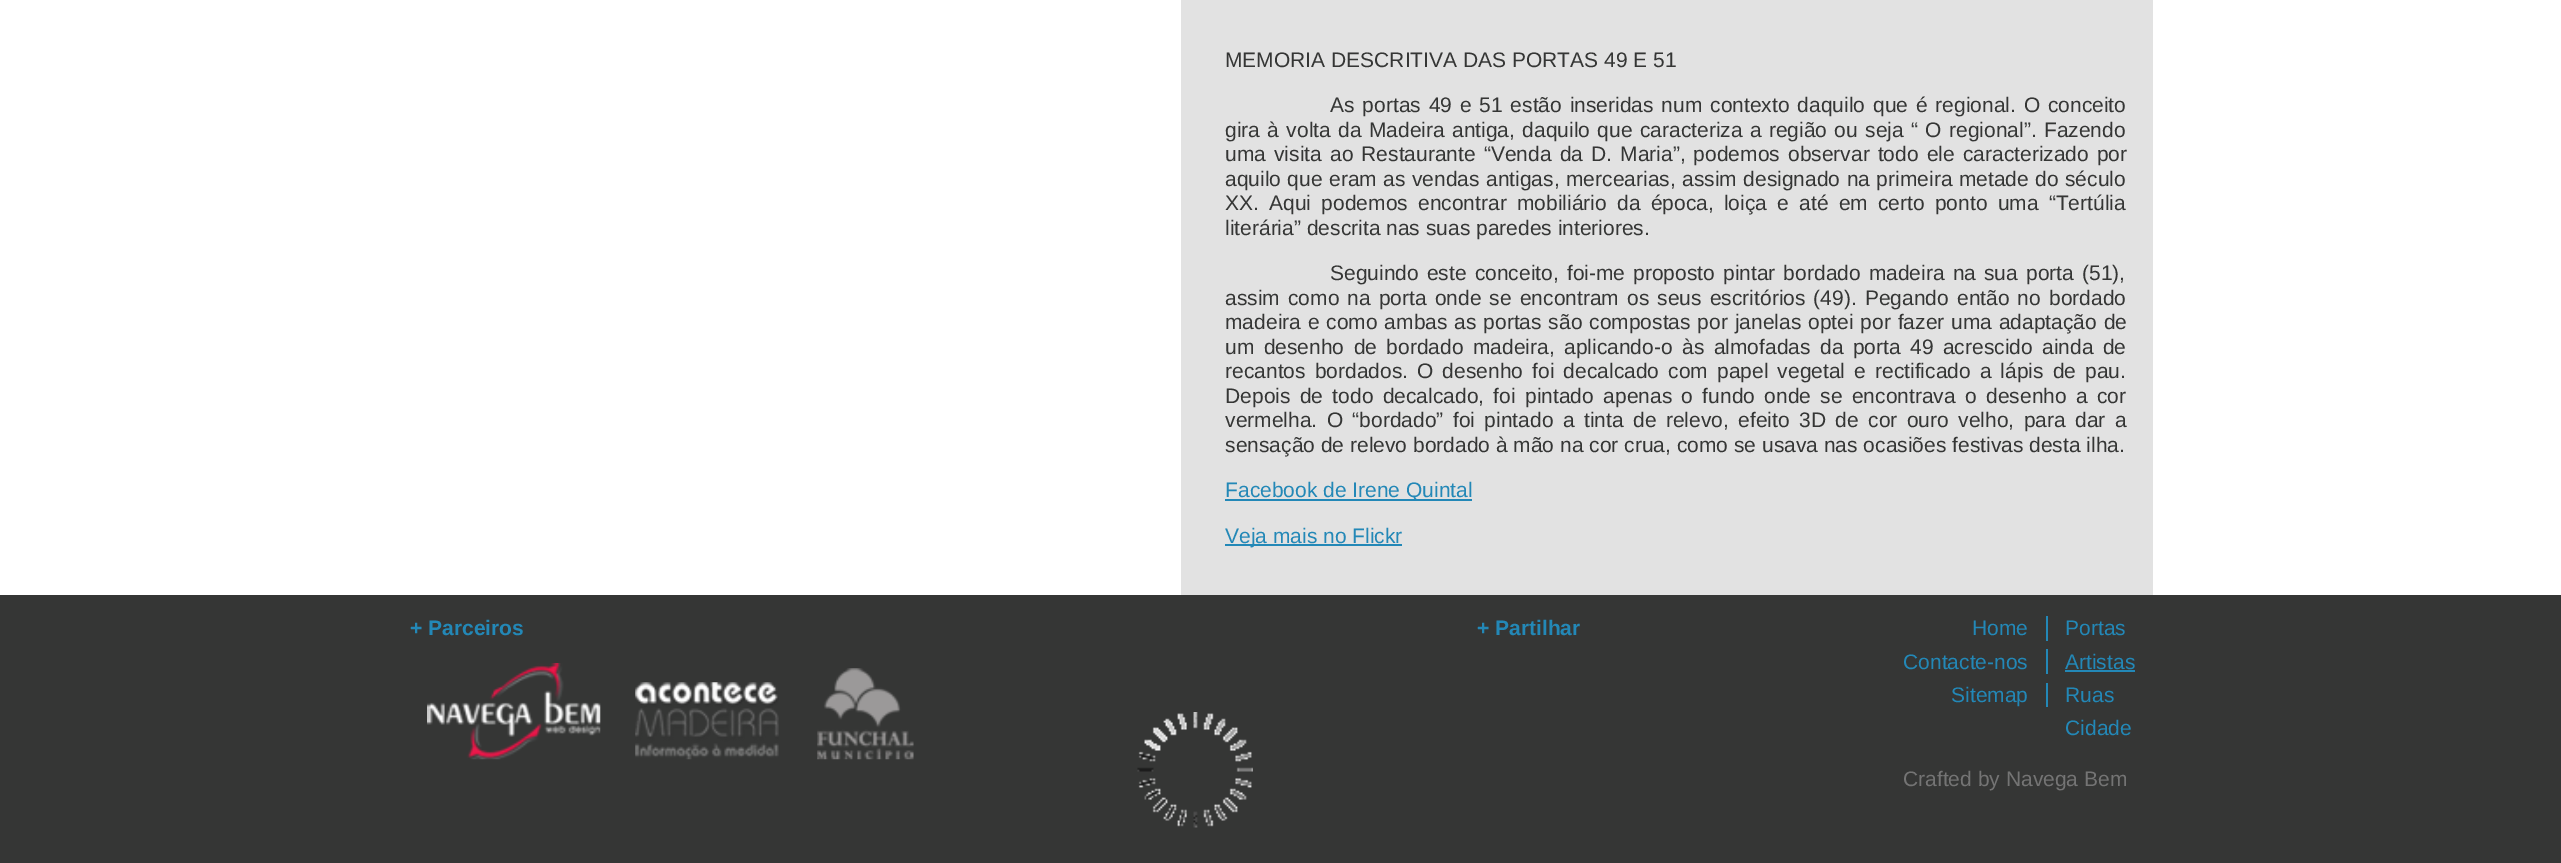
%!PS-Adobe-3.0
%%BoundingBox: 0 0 2561 863
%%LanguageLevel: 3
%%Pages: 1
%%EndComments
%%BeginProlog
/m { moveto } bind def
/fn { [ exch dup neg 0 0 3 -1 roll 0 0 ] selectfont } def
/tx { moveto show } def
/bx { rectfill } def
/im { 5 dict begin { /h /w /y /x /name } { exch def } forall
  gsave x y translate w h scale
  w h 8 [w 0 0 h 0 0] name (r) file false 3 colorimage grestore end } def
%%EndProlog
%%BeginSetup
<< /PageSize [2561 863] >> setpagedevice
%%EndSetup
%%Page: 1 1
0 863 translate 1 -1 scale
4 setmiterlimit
0.208 0.212 0.208 setrgbcolor
0 0 2561 863 bx
1 setgray
0 0 2561 595 bx
0.886 setgray
1181 0 972 595 bx
/LiberationSans-Regular 21 fn
0.208 0.212 0.208 setrgbcolor
(MEMORIA DESCRITIVA DAS PORTAS 49 E 51) 1225 67 tx
1330 112 m 2 0 32 (As portas 49 e 51 estão inseridas num contexto daquilo que é regional. O conceito) widthshow
1225 137 m 1.5 0 32 (gira à volta da Madeira antiga, daquilo que caracteriza a região ou seja “ O regional”. Fazendo) widthshow
1225 161 m 2.25 0 32 (uma visita ao Restaurante “Venda da D. Maria”, podemos observar todo ele caracterizado por) widthshow
1225 186 m 0.6 0 32 (aquilo que eram as vendas antigas, mercearias, assim designado na primeira metade do século) widthshow
1225 210 m 4.4 0 32 (XX. Aqui podemos encontrar mobiliário da época, loiça e até em certo ponto uma “Tertúlia) widthshow
(literária” descrita nas suas paredes interiores.) 1225 235 tx
1330 280 m 2.25 0 32 (Seguindo este conceito, foi-me proposto pintar bordado madeira na sua porta \(51\),) widthshow
1225 305 m 2.25 0 32 (assim como na porta onde se encontram os seus escritórios \(49\). Pegando então no bordado) widthshow
1225 329 m 1 0 32 (madeira e como ambas as portas são compostas por janelas optei por fazer uma adaptação de) widthshow
1225 354 m 3.6 0 32 (um desenho de bordado madeira, aplicando-o às almofadas da porta 49 acrescido ainda de) widthshow
1225 378 m 3.25 0 32 (recantos bordados. O desenho foi decalcado com papel vegetal e rectificado a lápis de pau.) widthshow
1225 403 m 3.5 0 32 (Depois de todo decalcado, foi pintado apenas o fundo onde se encontrava o desenho a cor) widthshow
1225 427 m 3.6 0 32 (vermelha. O “bordado” foi pintado a tinta de relevo, efeito 3D de cor ouro velho, para dar a) widthshow
(sensação de relevo bordado à mão na cor crua, como se usava nas ocasiões festivas desta ilha.) 1225 452 tx
0.137 0.533 0.718 setrgbcolor
1225 499 247 2 bx
(Facebook de Irene Quintal) 1225 497 tx
1225 544 177 2 bx
(Veja mais no Flickr) 1225 543 tx
/LiberationSans-Bold 21 fn
(+ Parceiros) 410 635 tx
(image0.raw) 427 663 174 97 im
(image1.raw) 635 682 144 78 im
(image2.raw) 817 668 97 92 im
(image3.raw) 1137 712 116 116 im
(+ Partilhar) 1477 635 tx
2046 616 2 25 bx
/LiberationSans-Regular 21 fn
(Home) 1972 635 tx
2046 649 2 25 bx
(Contacte-nos) 1903 669 tx
2046 683 2 24 bx
(Sitemap) 1951 702 tx
(Portas) 2065 635 tx
(Artistas) 2065 669 tx
2065 670 70 2 bx
(Ruas) 2065 702 tx
(Cidade) 2065 735 tx
0.455 setgray
(Crafted by Navega Bem) 1903 786 tx
showpage
%%EOF
